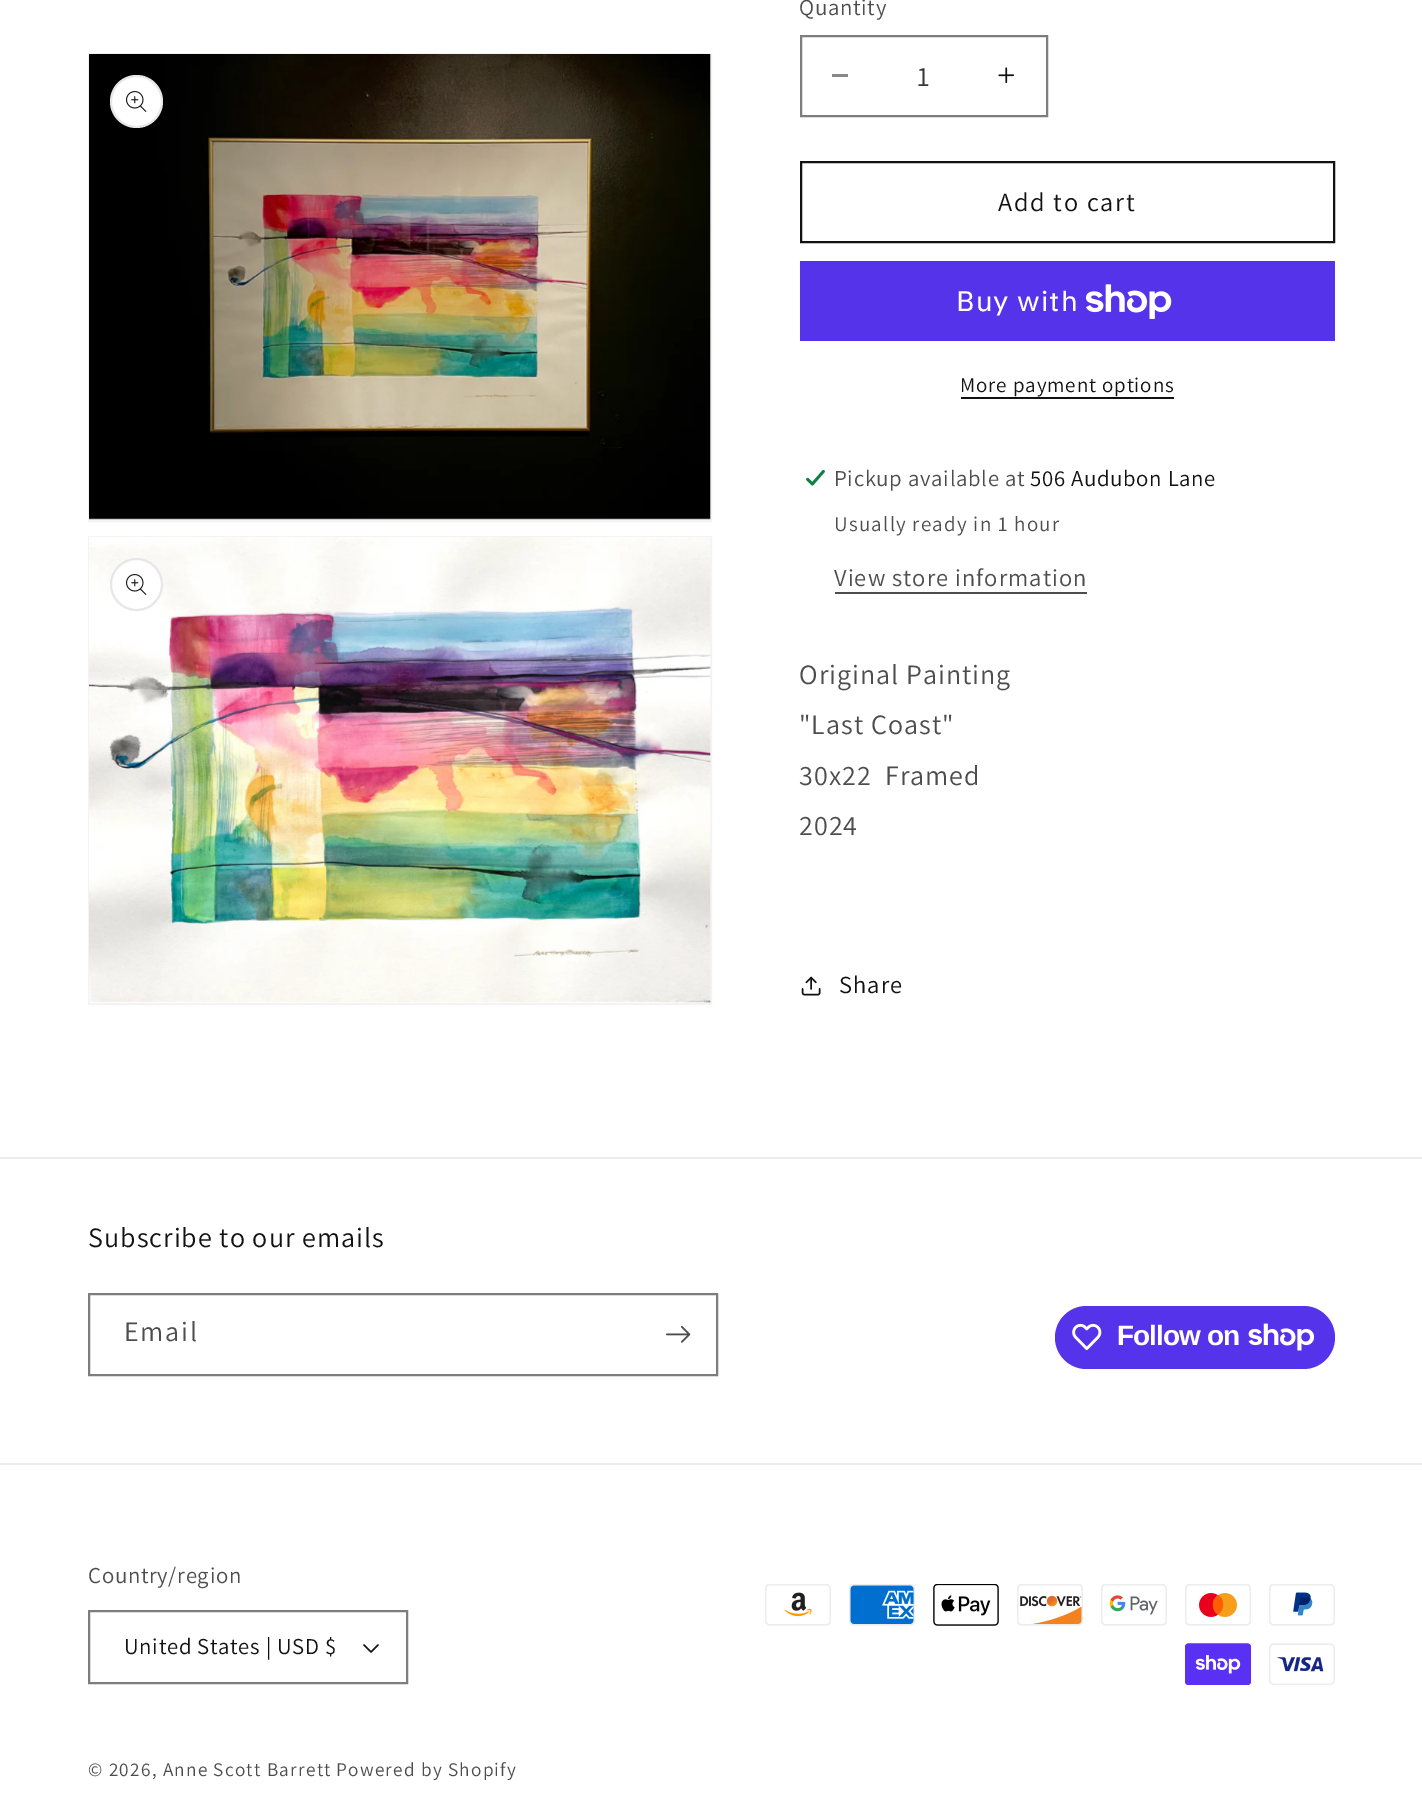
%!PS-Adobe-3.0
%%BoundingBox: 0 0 1422 1807
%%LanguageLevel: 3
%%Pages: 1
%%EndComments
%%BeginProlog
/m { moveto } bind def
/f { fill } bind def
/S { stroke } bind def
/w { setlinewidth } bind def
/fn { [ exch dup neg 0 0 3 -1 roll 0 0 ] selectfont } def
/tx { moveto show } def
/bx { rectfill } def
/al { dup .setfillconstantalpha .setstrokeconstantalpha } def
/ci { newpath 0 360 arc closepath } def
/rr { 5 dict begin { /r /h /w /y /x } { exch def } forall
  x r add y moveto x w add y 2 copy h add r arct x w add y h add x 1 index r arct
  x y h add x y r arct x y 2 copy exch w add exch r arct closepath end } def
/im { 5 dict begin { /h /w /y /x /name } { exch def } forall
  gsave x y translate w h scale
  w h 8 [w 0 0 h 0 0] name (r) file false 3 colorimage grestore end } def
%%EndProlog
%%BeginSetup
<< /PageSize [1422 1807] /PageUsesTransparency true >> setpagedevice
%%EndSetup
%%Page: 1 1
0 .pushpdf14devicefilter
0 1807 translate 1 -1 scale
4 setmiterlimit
1 setgray
0 0 1422 1807 bx
0.953 setgray
2 w
89 54 622 467 rectstroke
(image0.raw) 89 54 622 466 im
1 setgray
136.5 101.5 26.5 ci f
0.1 al
0.071 setgray
136.5 101.5 25.5 ci S
1 al
(image1.raw) 126 91 21 21 im
0.953 setgray
89 537 622 467 rectstroke
(image2.raw) 89 537 622 466 im
1 setgray
136.5 584.5 26.5 ci f
0.1 al
0.071 setgray
136.5 584.5 25.5 ci S
1 al
(image1.raw) 126 574 21 21 im
/Assistant-Regular 22.75 fn
0.302 setgray
799 15 m 0.7 0 (Quantity) ashow
0.537 setgray
832 74 16 3 bx
(image3.raw) 998 67 17 17 im
0.49 setgray
801 36 246 80 rectstroke
/Assistant-Regular 28 fn
0.212 setgray
(1) 917 86 tx
0.071 setgray
801 162 533 80 rectstroke
/Assistant-Regular 26.25 fn
998 211 m 1.75 0 (Add to cart) ashow
0.329 0.2 0.922 setrgbcolor
800 261 535 80 bx
/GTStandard-Regular 28 fn
1 setgray
956 311 m 1.05 0 (Buy with) ashow
(image4.raw) 1086 284 86 35 im
/Assistant-Regular 21 fn
0.071 setgray
960 392 m 0.9 0 (More payment options) ashow
961 397 213 2 bx
(image5.raw) 806 469 19 17 im
/Assistant-Regular 22.75 fn
0.302 setgray
834 486 m 0.7 0 (Pickup available at) ashow
0.071 setgray
1030 486 m 0.7 0 (506 Audubon Lane) ashow
/Assistant-Regular 21 fn
0.302 setgray
834 531 m 1.25 0 (Usually ready in 1 hour) ashow
/Assistant-Regular 24.5 fn
834 586 m 1.05 0 (View store information) ashow
835 592 252 2 bx
/Assistant-Regular 28 fn
799 684 m 1.05 0 (Original Painting) ashow
799 734 m 1.05 0 ("Last Coast") ashow
799 785 m 1.05 0 (30x22  Framed) ashow
799 835 m 1.05 0 (2024) ashow
(image6.raw) 801 976 20 20 im
/Assistant-Regular 24.5 fn
0.071 setgray
839 993 m 1.05 0 (Share) ashow
0.925 setgray
0 1157 1422 2 bx
/Assistant-Regular 28 fn
0.071 setgray
88 1247 m 1.05 0 (Subscribe to our emails) ashow
0.49 setgray
89 1294 628 81 rectstroke
0.302 setgray
124 1341 m 1.75 0 (Email) ashow
(image7.raw) 666 1326 25 17 im
0.329 0.2 0.922 setrgbcolor
1055 1306 280 63 31.5 rr f
(image8.raw) 1072 1323 30 28 im
/LiberationSans-Bold 28 fn
1 setgray
1117 1345 m -0.9 0 (Follow on) ashow
(image9.raw) 1248 1323 66 28 im
0.925 setgray
0 1463 1422 2 bx
/Assistant-Regular 22.75 fn
0.302 setgray
88 1583 m 0.7 0 (Country/region) ashow
(image10.raw) 363 1644 16 9 im
0.49 setgray
89 1611 318 72 rectstroke
0.071 setgray
124 1654 m 0.7 0 (United States | USD $) ashow
(image11.raw) 765 1584 66 42 im
(image12.raw) 849 1584 66 42 im
(image13.raw) 933 1584 66 42 im
(image14.raw) 1017 1584 66 42 im
(image15.raw) 1101 1584 66 42 im
(image16.raw) 1185 1584 66 42 im
(image17.raw) 1269 1584 66 42 im
(image18.raw) 1185 1643 66 42 im
(image19.raw) 1269 1643 66 42 im
/Assistant-Regular 19.25 fn
0.302 setgray
88 1776 m 1.25 0 (© 2026, Anne Scott Barrett) ashow
336 1776 m 1.25 0 (Powered by Shopify) ashow
.poppdf14devicefilter showpage
%%EOF
